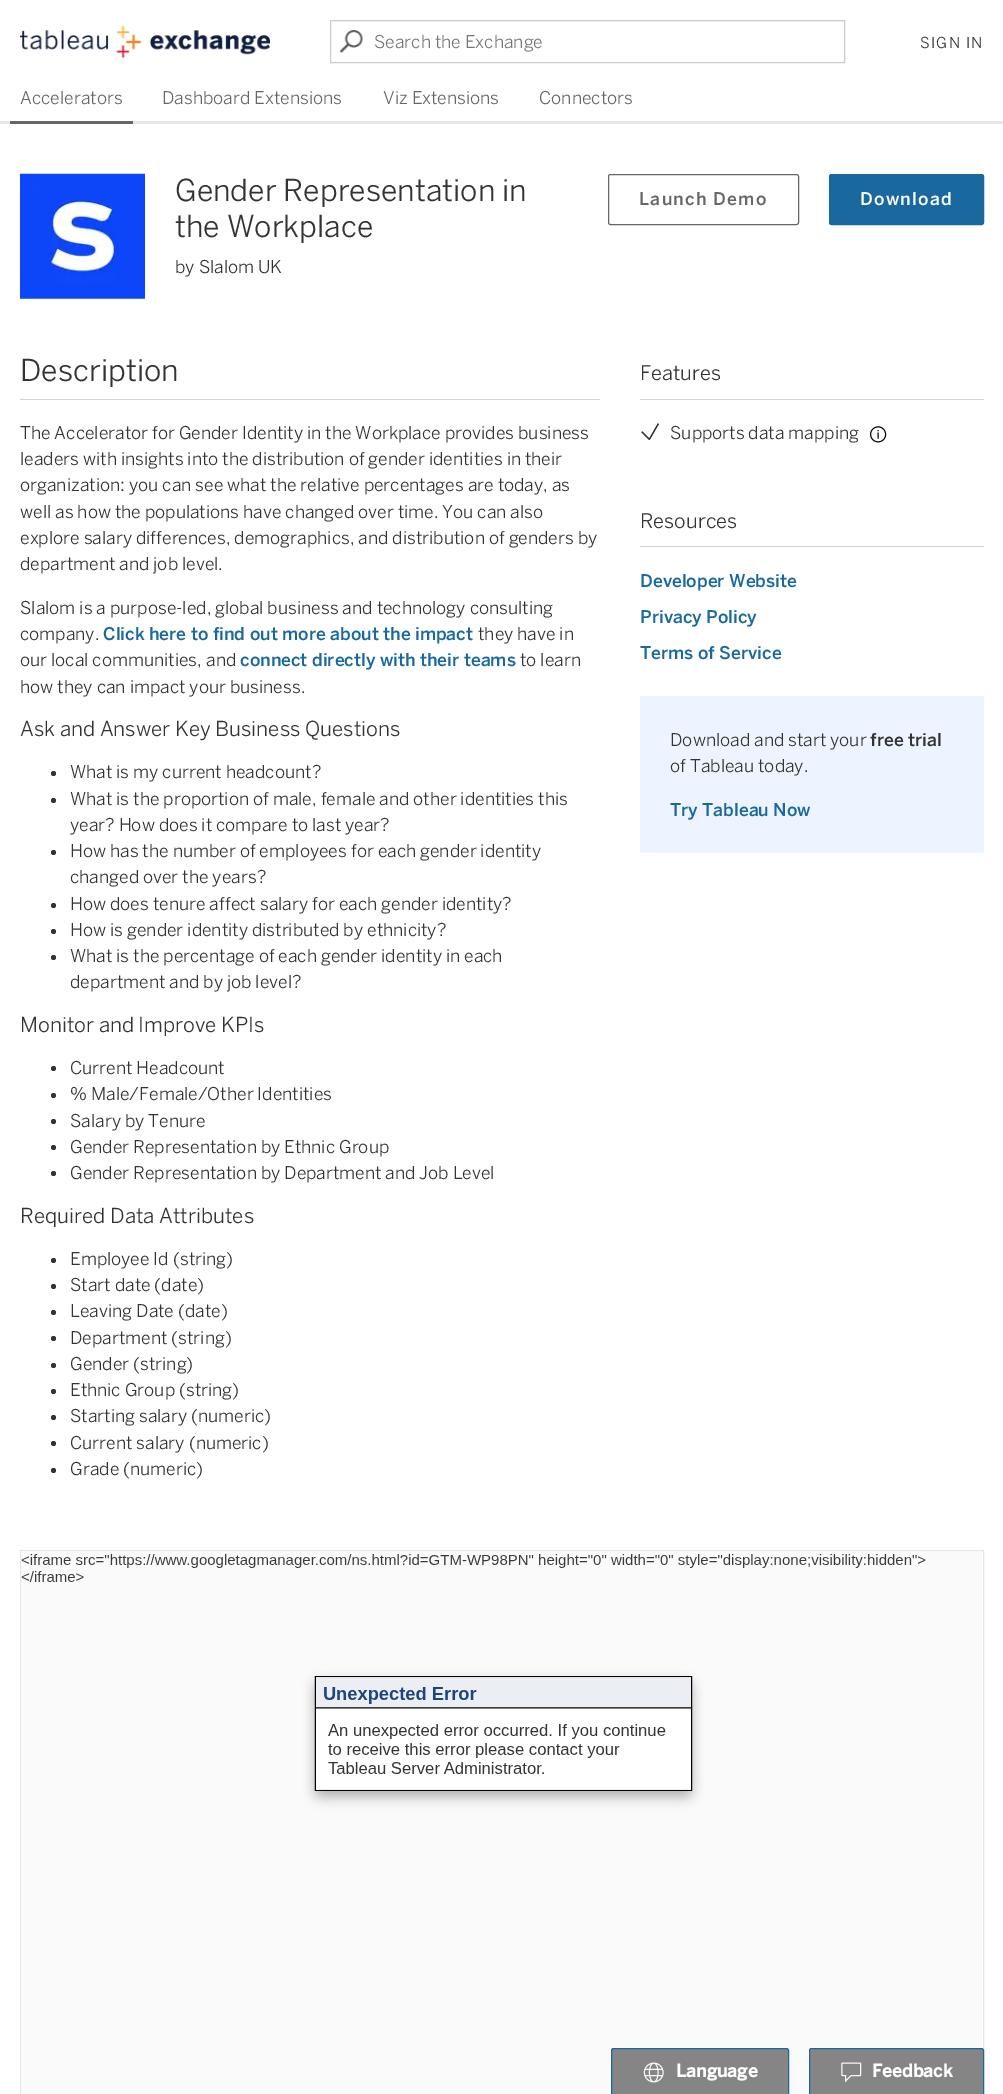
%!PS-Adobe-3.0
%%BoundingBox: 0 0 1003 2094
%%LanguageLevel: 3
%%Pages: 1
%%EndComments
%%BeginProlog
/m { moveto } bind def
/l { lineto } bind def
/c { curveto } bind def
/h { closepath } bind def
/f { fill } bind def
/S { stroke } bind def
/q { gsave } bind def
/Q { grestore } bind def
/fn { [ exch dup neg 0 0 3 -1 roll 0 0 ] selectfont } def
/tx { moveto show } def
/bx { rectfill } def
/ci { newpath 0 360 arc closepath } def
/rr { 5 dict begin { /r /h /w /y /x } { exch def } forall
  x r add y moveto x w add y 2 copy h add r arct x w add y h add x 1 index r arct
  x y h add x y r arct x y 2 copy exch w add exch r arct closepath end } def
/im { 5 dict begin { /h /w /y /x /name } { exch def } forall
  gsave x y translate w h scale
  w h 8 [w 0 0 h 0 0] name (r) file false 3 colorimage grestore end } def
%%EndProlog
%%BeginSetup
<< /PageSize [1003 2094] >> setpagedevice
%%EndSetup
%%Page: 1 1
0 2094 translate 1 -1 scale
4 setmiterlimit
1 setgray
0 0 1003 2094 bx
0.902 setgray
0 121 1003 3 bx
(image0.raw) 20 26 250 32 im
0.796 setgray
330.5 20.5 514 42 rectstroke
(image1.raw) 340 30 23 23 im
/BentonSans-Regular 17.5 fn
0.459 setgray
(Search the Exchange) 374 48 tx
/BentonSans-Regular 15 fn
0.2 setgray
920 48 m 1.25 0 (SIGN IN) ashow
0.4 setgray
10 121 123 3 bx
/BentonSans-Regular 17.5 fn
(Accelerators) 20 104 tx
(Dashboard Extensions) 162 104 tx
(Viz Extensions) 383 104 tx
(Connectors) 539 104 tx
(image2.raw) 20 173 125 126 im
/BentonSans-Regular 30 fn
0.2 setgray
(Gender Representation in) 175 201 tx
(the Workplace) 175 237 tx
/BentonSans-Regular 17.5 fn
(by Slalom UK) 175 273 tx
0.4 setgray
608.5 174.5 190 50 2 rr S
/BentonSans-Medium 17.5 fn
639 205 m 1.25 0 (Launch Demo) ashow
0.102 0.412 0.62 setrgbcolor
829.5 174.5 154 50 2 rr q f Q
S
1 setgray
860 205 m 1.25 0 (Download) ashow
0.831 setgray
20 399 580 1 bx
/BentonSans-Regular 30 fn
0.2 setgray
(Description) 20 381 tx
/BentonSans-Regular 17.5 fn
(The Accelerator for Gender Identity in the Workplace provides business) 20 439 tx
(leaders with insights into the distribution of gender identities in their) 20 465 tx
(organization: you can see what the relative percentages are today, as) 20 491 tx
(well as how the populations have changed over time. You can also) 20 518 tx
(explore salary differences, demographics, and distribution of genders by) 20 544 tx
(department and job level.) 20 570 tx
(Slalom is a purpose-led, global business and technology consulting) 20 614 tx
(company.) 20 640 tx
/BentonSans-Medium 17.5 fn
0.102 0.412 0.62 setrgbcolor
(Click here to find out more about the impact) 103 640 tx
/BentonSans-Regular 17.5 fn
0.2 setgray
(they have in) 478 640 tx
(our local communities, and) 20 666 tx
/BentonSans-Medium 17.5 fn
0.102 0.412 0.62 setrgbcolor
(connect directly with their teams) 240 666 tx
/BentonSans-Regular 17.5 fn
0.2 setgray
(to learn) 520 666 tx
(how they can impact your business.) 20 693 tx
/BentonSans-Regular 20.5 fn
(Ask and Answer Key Business Questions) 20 736 tx
53.5 773.5 2.5 ci f
/BentonSans-Regular 17.5 fn
(What is my current headcount?) 70 778 tx
53.5 800.5 2.5 ci f
(What is the proportion of male, female and other identities this) 70 805 tx
(year? How does it compare to last year?) 70 831 tx
53.5 852.5 2.5 ci f
(How has the number of employees for each gender identity) 70 857 tx
(changed over the years?) 70 883 tx
53.5 905.5 2.5 ci f
(How does tenure affect salary for each gender identity?) 70 910 tx
53.5 931.5 2.5 ci f
(How is gender identity distributed by ethnicity?) 70 936 tx
53.5 957.5 2.5 ci f
(What is the percentage of each gender identity in each) 70 962 tx
(department and by job level?) 70 988 tx
/BentonSans-Regular 20.5 fn
(Monitor and Improve KPIs) 20 1032 tx
53.5 1068.5 2.5 ci f
/BentonSans-Regular 17.5 fn
(Current Headcount) 70 1074 tx
53.5 1095.5 2.5 ci f
(% Male/Female/Other Identities) 70 1100 tx
53.5 1121.5 2.5 ci f
(Salary by Tenure) 70 1127 tx
53.5 1147.5 2.5 ci f
(Gender Representation by Ethnic Group) 70 1153 tx
53.5 1173.5 2.5 ci f
(Gender Representation by Department and Job Level) 70 1179 tx
/BentonSans-Regular 20.5 fn
(Required Data Attributes) 20 1223 tx
53.5 1260.5 2.5 ci f
/BentonSans-Regular 17.5 fn
(Employee Id \(string\)) 70 1265 tx
53.5 1286.5 2.5 ci f
(Start date \(date\)) 70 1291 tx
53.5 1312.5 2.5 ci f
(Leaving Date \(date\)) 70 1317 tx
53.5 1338.5 2.5 ci f
(Department \(string\)) 70 1344 tx
53.5 1365.5 2.5 ci f
(Gender \(string\)) 70 1370 tx
53.5 1391.5 2.5 ci f
(Ethnic Group \(string\)) 70 1396 tx
53.5 1417.5 2.5 ci f
(Starting salary \(numeric\)) 70 1422 tx
53.5 1443.5 2.5 ci f
(Current salary \(numeric\)) 70 1449 tx
53.5 1470.5 2.5 ci f
(Grade \(numeric\)) 70 1475 tx
0.831 setgray
640 399 344 1 bx
/BentonSans-Regular 20 fn
0.2 setgray
(Features) 640 380 tx
(image3.raw) 641 423 18 17 im
/BentonSans-Regular 17.5 fn
(Supports data mapping) 670 439 tx
(image4.raw) 870 426 17 17 im
0.831 setgray
640 546 344 1 bx
/BentonSans-Regular 20 fn
0.2 setgray
(Resources) 640 528 tx
/BentonSans-Medium 17.5 fn
0.102 0.412 0.62 setrgbcolor
(Developer Website) 640 587 tx
(Privacy Policy) 640 623 tx
(Terms of Service) 640 659 tx
0.933 0.957 1 setrgbcolor
640 696 344 157 bx
/BentonSans-Regular 17.5 fn
0.2 setgray
(Download and start your) 670 746 tx
/BentonSans-Medium 17.5 fn
(free trial) 870 746 tx
/BentonSans-Regular 17.5 fn
(of Tableau today.) 670 772 tx
/BentonSans-Medium 17.5 fn
0.102 0.412 0.62 setrgbcolor
(Try Tableau Now) 670 816 tx
0.902 setgray
20.5 1550.5 963 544 rectstroke
(image5.raw) 21 1551 961 543 im
0.522 setgray
613.5 2048.5 m 786.5 2048.5 l 787.5 2048.5 788.5 2049.5 788.5 2050.5 c 788.5 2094.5 l 611.5 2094.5 l 611.5 2050.5 l 611.5 2049.5 612.5 2048.5 613.5 2048.5 c h q f Q
0.102 0.412 0.62 setrgbcolor
S
(image6.raw) 643 2062 21 21 im
/BentonSans-Bold 17.5 fn
1 setgray
(Language) 676 2077 tx
0.522 setgray
811.5 2048.5 m 981.5 2048.5 l 982.5 2048.5 983.5 2049.5 983.5 2050.5 c 983.5 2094.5 l 809.5 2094.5 l 809.5 2050.5 l 809.5 2049.5 810.5 2048.5 811.5 2048.5 c h q f Q
0.102 0.412 0.62 setrgbcolor
S
(image7.raw) 841 2062 21 21 im
1 setgray
(Feedback) 872 2077 tx
showpage
%%EOF
